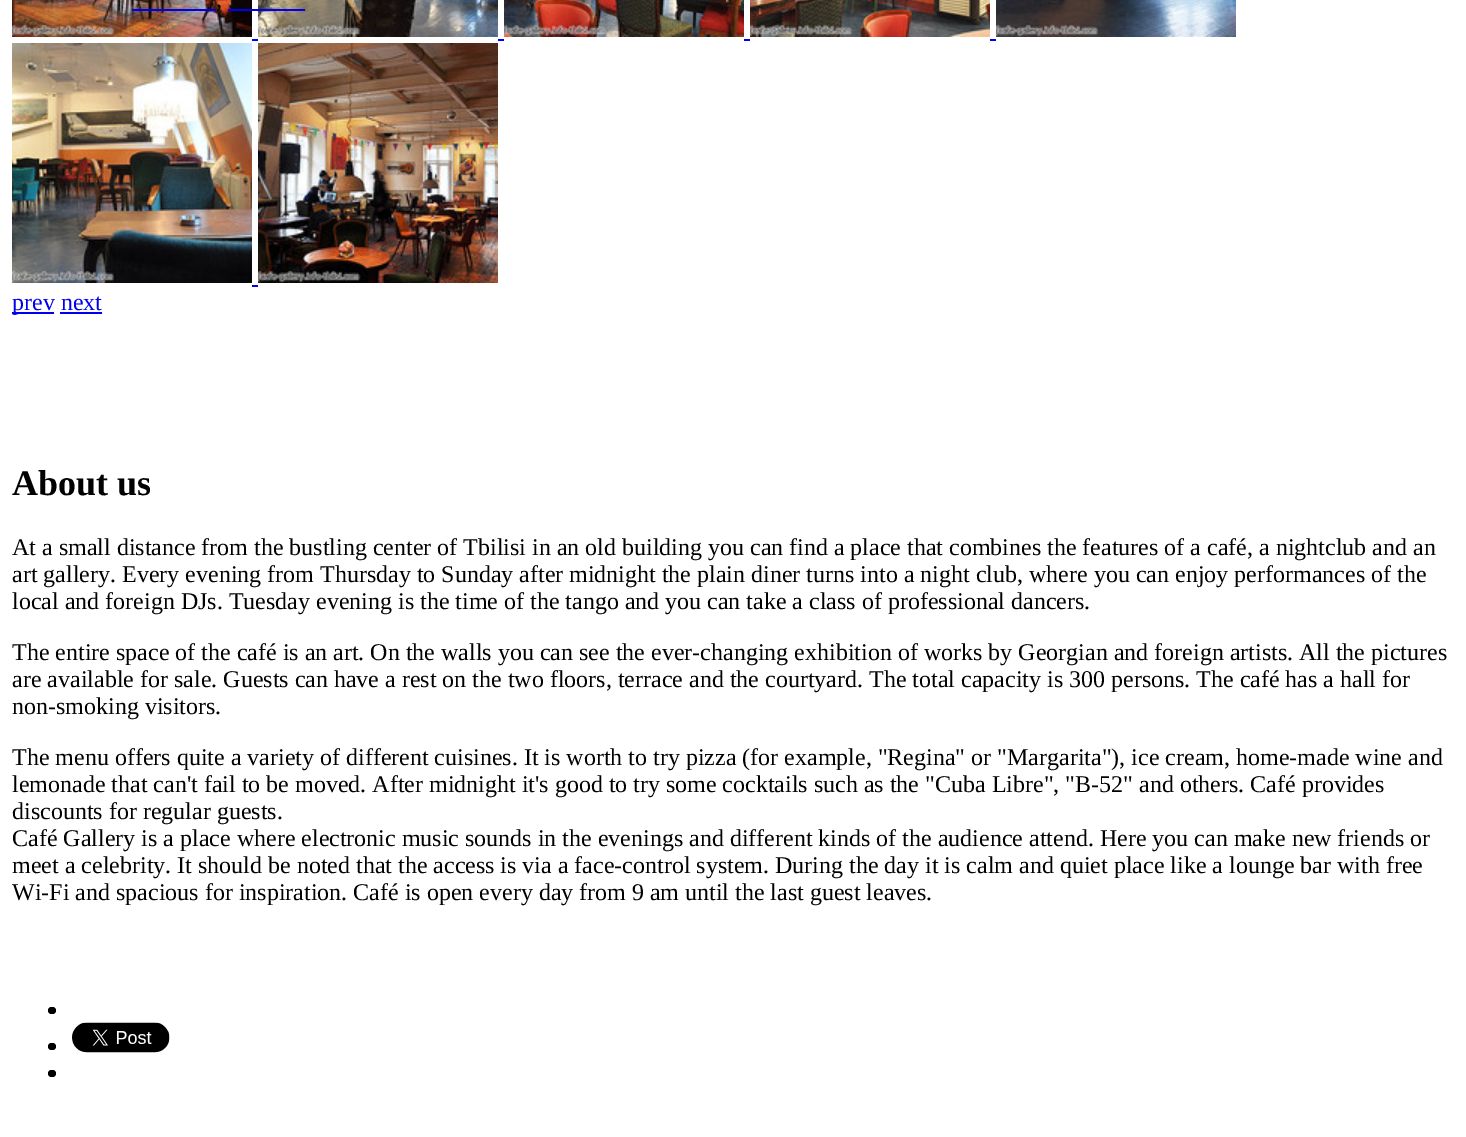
%!PS-Adobe-3.0
%%BoundingBox: 0 0 1466 1137
%%LanguageLevel: 3
%%Pages: 1
%%EndComments
%%BeginProlog
/f { fill } bind def
/fn { [ exch dup neg 0 0 3 -1 roll 0 0 ] selectfont } def
/tx { moveto show } def
/bx { rectfill } def
/rr { 5 dict begin { /r /h /w /y /x } { exch def } forall
  x r add y moveto x w add y 2 copy h add r arct x w add y h add x 1 index r arct
  x y h add x y r arct x y 2 copy exch w add exch r arct closepath end } def
/im { 5 dict begin { /h /w /y /x /name } { exch def } forall
  gsave x y translate w h scale
  w h 8 [w 0 0 h 0 0] name (r) file false 3 colorimage grestore end } def
%%EndProlog
%%BeginSetup
<< /PageSize [1466 1137] >> setpagedevice
%%EndSetup
%%Page: 1 1
0 1137 translate 1 -1 scale
4 setmiterlimit
1 setgray
0 0 1466 1137 bx
(image0.raw) 12 0 240 37 im
0 0 0.933 setrgbcolor
132 9 84 2 bx
/LiberationSerif-Regular 24 fn
0 setgray
(,) 216 7 tx
(image1.raw) 258 0 240 37 im
0 0 0.933 setrgbcolor
228 9 77 2 bx
(image2.raw) 504 0 240 37 im
(image3.raw) 750 0 240 37 im
(image4.raw) 996 0 240 37 im
252 39 6 2 bx
498 39 6 2 bx
744 39 6 2 bx
990 39 6 2 bx
(image5.raw) 12 43 240 240 im
(image6.raw) 258 43 240 240 im
252 285 6 2 bx
12 312 42 2 bx
(prev next) 12 310 tx
60 312 42 2 bx
/LiberationSerif-Bold 36 fn
0 setgray
(About us) 12 495 tx
/LiberationSerif-Regular 24 fn
(At a small distance from the bustling center of Tbilisi in an old building you can find a place that combines the features of a café, a nightclub and an) 12 555 tx
(art gallery. Every evening from Thursday to Sunday after midnight the plain diner turns into a night club, where you can enjoy performances of the) 12 582 tx
(local and foreign DJs. Tuesday evening is the time of the tango and you can take a class of professional dancers.) 12 609 tx
(The entire space of the café is an art. On the walls you can see the ever-changing exhibition of works by Georgian and foreign artists. All the pictures) 12 660 tx
(are available for sale. Guests can have a rest on the two floors, terrace and the courtyard. The total capacity is 300 persons. The café has a hall for) 12 687 tx
(non-smoking visitors.) 12 714 tx
(The menu offers quite a variety of different cuisines. It is worth to try pizza \(for example, "Regina" or "Margarita"\), ice cream, home-made wine and) 12 765 tx
(lemonade that can't fail to be moved. After midnight it's good to try some cocktails such as the "Cuba Libre", "B-52" and others. Café provides) 12 792 tx
(discounts for regular guests.) 12 819 tx
(Café Gallery is a place where electronic music sounds in the evenings and different kinds of the audience attend. Here you can make new friends or) 12 846 tx
(meet a celebrity. It should be noted that the access is via a face-control system. During the day it is calm and quiet place like a lounge bar with free) 12 873 tx
(Wi-Fi and spacious for inspiration. Café is open every day from 9 am until the last guest leaves.) 12 900 tx
48 1007 8 7 3.5 rr f
48 1043 8 7 3.5 rr f
(image7.raw) 72 1022 98 31 im
48 1070 8 7 3.5 rr f
showpage
%%EOF
